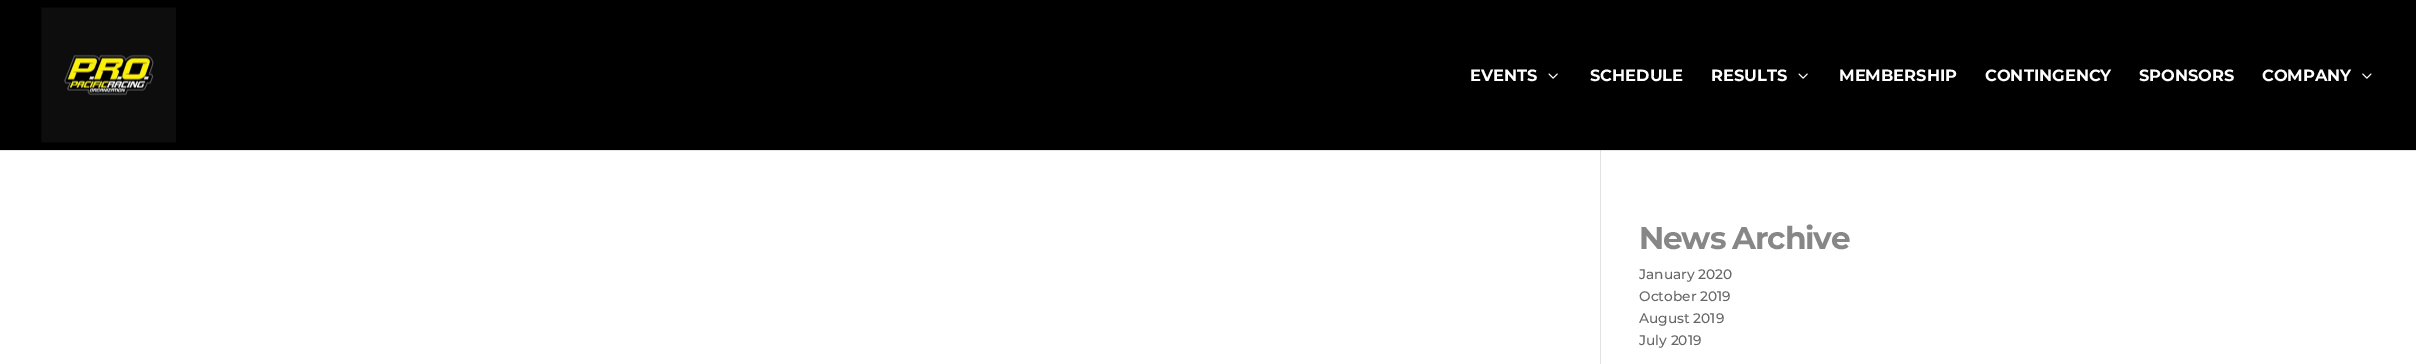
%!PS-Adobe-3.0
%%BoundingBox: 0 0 2416 364
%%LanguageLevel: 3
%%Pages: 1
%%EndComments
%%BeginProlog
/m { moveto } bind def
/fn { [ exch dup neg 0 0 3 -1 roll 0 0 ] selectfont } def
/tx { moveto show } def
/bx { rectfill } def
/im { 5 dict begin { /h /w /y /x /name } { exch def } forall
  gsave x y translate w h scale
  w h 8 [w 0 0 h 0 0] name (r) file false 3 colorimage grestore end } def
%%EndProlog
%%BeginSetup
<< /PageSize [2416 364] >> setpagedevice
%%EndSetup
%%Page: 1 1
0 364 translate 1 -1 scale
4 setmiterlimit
1 setgray
0 0 2416 364 bx
0.902 setgray
0 150 2416 1 bx
0 setgray
0 0 2416 150 bx
(image0.raw) 41 7 135 136 im
/Montserrat-Bold 16.25 fn
1 setgray
(EVENTS) 1470 81 tx
(image1.raw) 1548 73 10 6 im
(SCHEDULE) 1590 81 tx
(RESULTS) 1711 81 tx
(image1.raw) 1798 73 10 6 im
(MEMBERSHIP) 1839 81 tx
(CONTINGENCY) 1985 81 tx
(SPONSORS) 2139 81 tx
(COMPANY) 2262 81 tx
(image2.raw) 2362 73 10 6 im
0.886 setgray
1600 150 1 214 bx
0.796 setgray
1600 150 1 1 bx
/Montserrat-Bold 31.25 fn
0.529 setgray
1639 249 m -1.25 0 (News Archive) ashow
/Montserrat-Medium 13.75 fn
0.4 setgray
(January 2020) 1639 279 tx
(October 2019) 1639 301 tx
(August 2019) 1639 323 tx
(July 2019) 1639 345 tx
showpage
%%EOF
